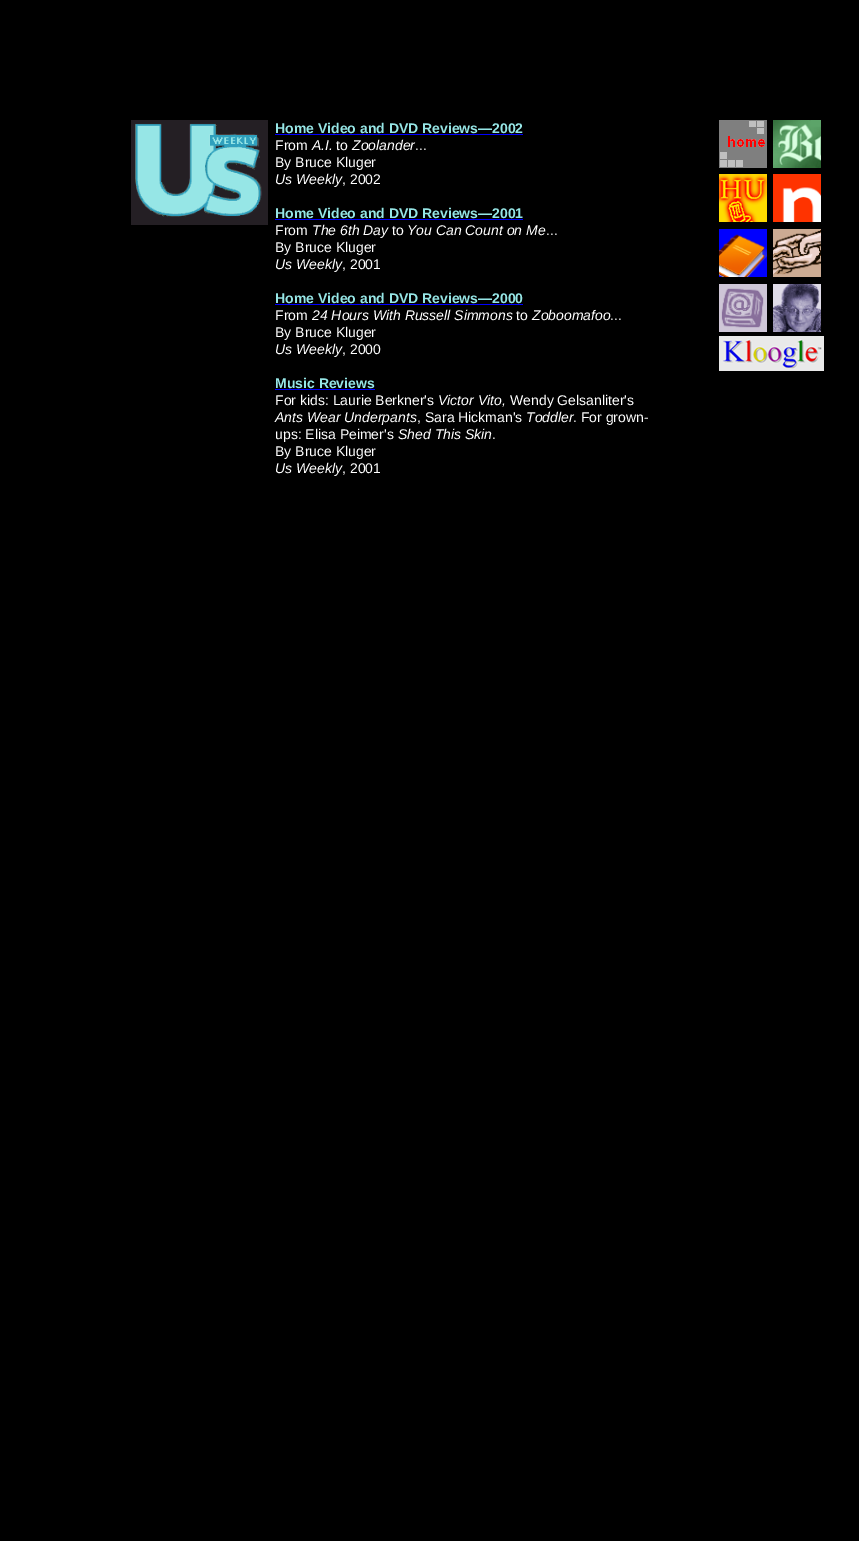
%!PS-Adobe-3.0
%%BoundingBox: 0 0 859 1541
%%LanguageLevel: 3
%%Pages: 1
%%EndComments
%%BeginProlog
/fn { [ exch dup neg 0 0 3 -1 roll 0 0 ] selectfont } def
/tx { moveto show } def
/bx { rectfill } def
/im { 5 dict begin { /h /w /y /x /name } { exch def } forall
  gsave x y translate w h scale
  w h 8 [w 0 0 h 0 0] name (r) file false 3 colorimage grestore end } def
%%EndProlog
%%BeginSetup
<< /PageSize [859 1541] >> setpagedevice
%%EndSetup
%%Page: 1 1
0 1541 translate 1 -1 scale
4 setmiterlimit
0 setgray
0 0 859 1541 bx
(image0.raw) 131 120 137 105 im
/LiberationSans-Bold 14 fn
0.588 0.902 0.902 setrgbcolor
(Home Video and DVD Reviews—2002) 275 133 tx
0 0 1 setrgbcolor
275 134 248 1 bx
/LiberationSans-Regular 14 fn
1 setgray
(From) 275 150 tx
/LiberationSans-Italic 14 fn
(A.I.) 312 150 tx
/LiberationSans-Regular 14 fn
(to) 336 150 tx
/LiberationSans-Italic 14 fn
(Zoolander) 352 150 tx
/LiberationSans-Regular 14 fn
(...) 415 150 tx
(By Bruce Kluger) 275 167 tx
/LiberationSans-Italic 14 fn
(Us Weekly) 275 184 tx
/LiberationSans-Regular 14 fn
(, 2002) 342 184 tx
/LiberationSans-Bold 14 fn
0.588 0.902 0.902 setrgbcolor
(Home Video and DVD Reviews—2001) 275 218 tx
0 0 1 setrgbcolor
275 219 248 1 bx
/LiberationSans-Regular 14 fn
1 setgray
(From) 275 235 tx
/LiberationSans-Italic 14 fn
(The 6th Day) 312 235 tx
/LiberationSans-Regular 14 fn
(to) 392 235 tx
/LiberationSans-Italic 14 fn
(You Can Count on Me) 407 235 tx
/LiberationSans-Regular 14 fn
(...) 546 235 tx
(By Bruce Kluger) 275 252 tx
/LiberationSans-Italic 14 fn
(Us Weekly) 275 269 tx
/LiberationSans-Regular 14 fn
(, 2001) 342 269 tx
/LiberationSans-Bold 14 fn
0.588 0.902 0.902 setrgbcolor
(Home Video and DVD Reviews—2000) 275 303 tx
0 0 1 setrgbcolor
275 304 248 1 bx
/LiberationSans-Regular 14 fn
1 setgray
(From) 275 320 tx
/LiberationSans-Italic 14 fn
(24 Hours With Russell Simmons) 312 320 tx
/LiberationSans-Regular 14 fn
(to) 516 320 tx
/LiberationSans-Italic 14 fn
(Zoboomafoo) 532 320 tx
/LiberationSans-Regular 14 fn
(...) 610 320 tx
(By Bruce Kluger) 275 337 tx
/LiberationSans-Italic 14 fn
(Us Weekly) 275 354 tx
/LiberationSans-Regular 14 fn
(, 2000) 342 354 tx
/LiberationSans-Bold 14 fn
0.588 0.902 0.902 setrgbcolor
(Music Reviews) 275 388 tx
0 0 1 setrgbcolor
275 389 100 1 bx
/LiberationSans-Regular 14 fn
1 setgray
(For kids: Laurie Berkner's) 275 405 tx
/LiberationSans-Italic 14 fn
(Victor Vito,) 438 405 tx
/LiberationSans-Regular 14 fn
(Wendy Gelsanliter's) 510 405 tx
/LiberationSans-Italic 14 fn
(Ants Wear Underpants) 275 422 tx
/LiberationSans-Regular 14 fn
(, Sara Hickman's) 417 422 tx
/LiberationSans-Italic 14 fn
(Toddler) 526 422 tx
/LiberationSans-Regular 14 fn
(. For grown-) 573 422 tx
(ups: Elisa Peimer's) 275 439 tx
/LiberationSans-Italic 14 fn
(Shed This Skin) 398 439 tx
/LiberationSans-Regular 14 fn
(.) 492 439 tx
(By Bruce Kluger) 275 456 tx
/LiberationSans-Italic 14 fn
(Us Weekly) 275 473 tx
/LiberationSans-Regular 14 fn
(, 2001) 342 473 tx
(image1.raw) 719 120 48 48 im
(image2.raw) 773 120 48 48 im
(image3.raw) 719 174 48 48 im
(image4.raw) 773 174 48 48 im
(image5.raw) 719 229 48 48 im
(image6.raw) 773 229 48 48 im
(image7.raw) 719 284 48 48 im
(image8.raw) 773 284 48 48 im
(image9.raw) 719 336 105 35 im
showpage
%%EOF
